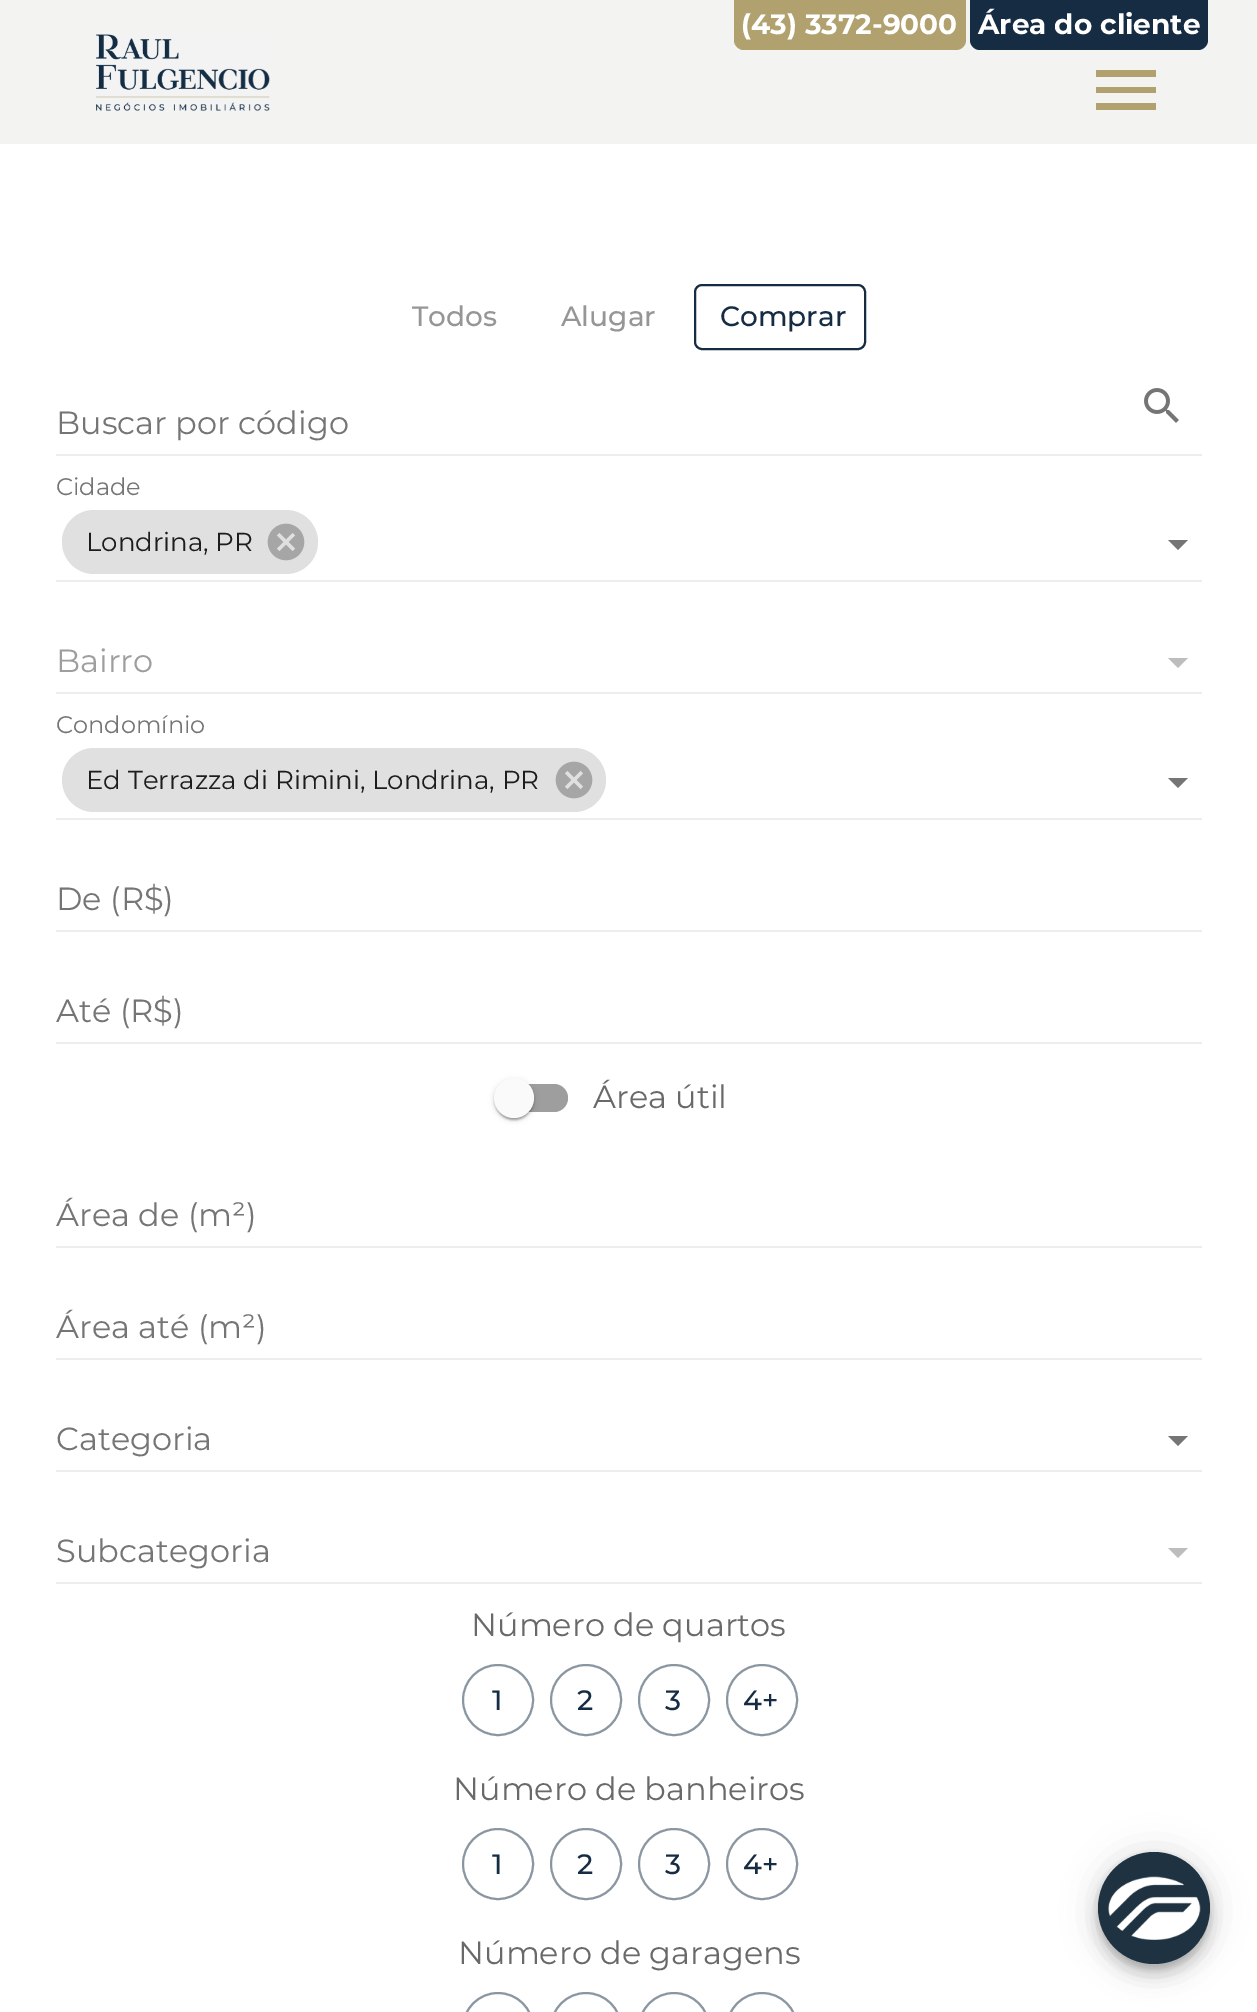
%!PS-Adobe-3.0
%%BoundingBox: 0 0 1257 2012
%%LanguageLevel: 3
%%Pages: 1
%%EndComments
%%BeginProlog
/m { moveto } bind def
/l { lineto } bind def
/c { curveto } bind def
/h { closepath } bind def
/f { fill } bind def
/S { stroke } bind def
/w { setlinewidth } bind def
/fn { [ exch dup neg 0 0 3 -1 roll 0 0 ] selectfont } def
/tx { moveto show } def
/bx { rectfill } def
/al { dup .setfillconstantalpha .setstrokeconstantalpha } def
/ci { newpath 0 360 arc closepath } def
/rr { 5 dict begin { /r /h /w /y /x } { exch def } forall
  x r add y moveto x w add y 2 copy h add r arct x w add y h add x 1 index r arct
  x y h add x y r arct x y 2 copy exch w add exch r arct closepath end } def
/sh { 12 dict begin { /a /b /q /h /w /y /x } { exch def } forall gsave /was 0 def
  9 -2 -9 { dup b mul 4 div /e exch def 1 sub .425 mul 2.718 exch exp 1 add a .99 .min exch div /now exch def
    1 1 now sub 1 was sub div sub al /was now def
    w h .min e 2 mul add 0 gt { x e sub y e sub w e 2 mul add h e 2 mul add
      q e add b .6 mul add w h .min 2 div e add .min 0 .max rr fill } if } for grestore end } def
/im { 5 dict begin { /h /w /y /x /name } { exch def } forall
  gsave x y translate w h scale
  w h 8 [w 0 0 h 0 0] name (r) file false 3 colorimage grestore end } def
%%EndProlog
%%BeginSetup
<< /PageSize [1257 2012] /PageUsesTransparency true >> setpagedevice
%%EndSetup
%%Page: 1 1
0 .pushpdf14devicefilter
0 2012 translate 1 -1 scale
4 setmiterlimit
1 setgray
0 0 1257 2012 bx
0.953 0.953 0.949 setrgbcolor
0 0 1257 144 bx
(image0.raw) 96 34 174 77 im
0.694 0.631 0.431 setrgbcolor
1096 110 m 1156 110 l 1156 103 l 1096 103 l h 1096 93 m 1156 93 l 1156 87 l 1096 87 l h 1096 70 m 1096 77 l 1156 77 l 1156 70 l h f
734 0 m 966 0 l 966 40 l 966 45.5 961.5 50 956 50 c 744 50 l 738.5 50 734 45.5 734 40 c h f
/Montserrat-Bold 28 fn
1 setgray
(\(43\) 3372-9000) 741 34 tx
0.082 0.173 0.263 setrgbcolor
970 0 m 1208 0 l 1208 40 l 1208 45.5 1203.5 50 1198 50 c 980 50 l 974.5 50 970 45.5 970 40 c h f
1 setgray
(Área do cliente) 978 34 tx
0.082 0.173 0.263 setrgbcolor
2 w
695 285 170 64 7 rr S
/Montserrat-Medium 28 fn
0.588 setgray
(Todos) 412 326 tx
(Alugar) 561 326 tx
0.082 0.173 0.263 setrgbcolor
(Comprar) 720 326 tx
/Montserrat-Regular 32 fn
0.459 setgray
(Buscar por código) 56 434 tx
0.929 setgray
56 454 1146 2 bx
(image1.raw) 1144 388 35 35 im
/Montserrat-Regular 24 fn
0.459 setgray
(Cidade) 56 495 tx
0.878 setgray
62 510 256 64 32 rr f
/Montserrat-Regular 26 fn
0.114 setgray
(Londrina, PR) 86 551 tx
(image2.raw) 267 523 38 38 im
0.459 setgray
1168 540 m 1178 550 l 1188 540 l h f
0.929 setgray
56 580 1146 2 bx
/Montserrat-Regular 32 fn
0.62 setgray
(Bairro) 56 672 tx
0.741 setgray
1168 658 m 1178 668 l 1188 658 l h f
0.929 setgray
56 692 1146 2 bx
/Montserrat-Regular 24 fn
0.459 setgray
(Condomínio) 56 733 tx
0.878 setgray
62 748 544 64 32 rr f
/Montserrat-Regular 26 fn
0.114 setgray
(Ed Terrazza di Rimini, Londrina, PR) 86 789 tx
(image2.raw) 555 761 38 38 im
0.459 setgray
1168 778 m 1178 788 l 1188 778 l h f
0.929 setgray
56 818 1146 2 bx
/Montserrat-Regular 32 fn
0.459 setgray
(De \(R$\)) 56 910 tx
0.929 setgray
56 930 1146 2 bx
0.459 setgray
(Até \(R$\)) 56 1022 tx
0.929 setgray
56 1042 1146 2 bx
0.62 setgray
500 1084 68 28 14 rr f
0 setgray
494 1080 40 40 20 3 0.12 sh
494 1080 40 40 20 1 0.14 sh
496 1084 36 36 18 1 0.2 sh
0.98 setgray
514 1098 20 ci f
0.412 setgray
(Área útil) 593 1108 tx
0.459 setgray
(Área de \(m²\)) 56 1226 tx
0.929 setgray
56 1246 1146 2 bx
0.459 setgray
(Área até \(m²\)) 56 1338 tx
0.929 setgray
56 1358 1146 2 bx
0.459 setgray
(Categoria) 56 1450 tx
1168 1436 m 1178 1446 l 1188 1436 l h f
0.929 setgray
56 1470 1146 2 bx
0.459 setgray
(Subcategoria) 56 1562 tx
0.741 setgray
1168 1548 m 1178 1558 l 1188 1548 l h f
0.929 setgray
56 1582 1146 2 bx
0.412 setgray
(Número de quartos) 471 1636 tx
0.541 0.588 0.631 setrgbcolor
498 1700 35 ci S
/Montserrat-Medium 28 fn
0.082 0.173 0.263 setrgbcolor
(1) 492 1710 tx
0.541 0.588 0.631 setrgbcolor
586 1700 35 ci S
0.082 0.173 0.263 setrgbcolor
(2) 577 1710 tx
0.541 0.588 0.631 setrgbcolor
674 1700 35 ci S
0.082 0.173 0.263 setrgbcolor
(3) 665 1710 tx
0.541 0.588 0.631 setrgbcolor
762 1700 35 ci S
0.082 0.173 0.263 setrgbcolor
(4+) 743 1710 tx
/Montserrat-Regular 32 fn
0.412 setgray
(Número de banheiros) 453 1800 tx
0.541 0.588 0.631 setrgbcolor
498 1864 35 ci S
/Montserrat-Medium 28 fn
0.082 0.173 0.263 setrgbcolor
(1) 492 1874 tx
0.541 0.588 0.631 setrgbcolor
586 1864 35 ci S
0.082 0.173 0.263 setrgbcolor
(2) 577 1874 tx
0.541 0.588 0.631 setrgbcolor
674 1864 35 ci S
0.082 0.173 0.263 setrgbcolor
(3) 665 1874 tx
0.541 0.588 0.631 setrgbcolor
762 1864 35 ci S
0.082 0.173 0.263 setrgbcolor
(4+) 743 1874 tx
/Montserrat-Regular 32 fn
0.412 setgray
(Número de garagens) 458 1964 tx
0.541 0.588 0.631 setrgbcolor
463 1993 70 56 35 rr S
551 1993 70 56 35 rr S
639 1993 70 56 35 rr S
727 1993 70 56 35 rr S
0 setgray
1098 1854 112 112 56 18 0.12 sh
1098 1864 112 112 56 10 0.14 sh
1100 1860 108 108 54 5 0.2 sh
0.118 0.196 0.255 setrgbcolor
1154 1908 56 ci f
(image3.raw) 1108 1876 93 64 im
.poppdf14devicefilter showpage
%%EOF
